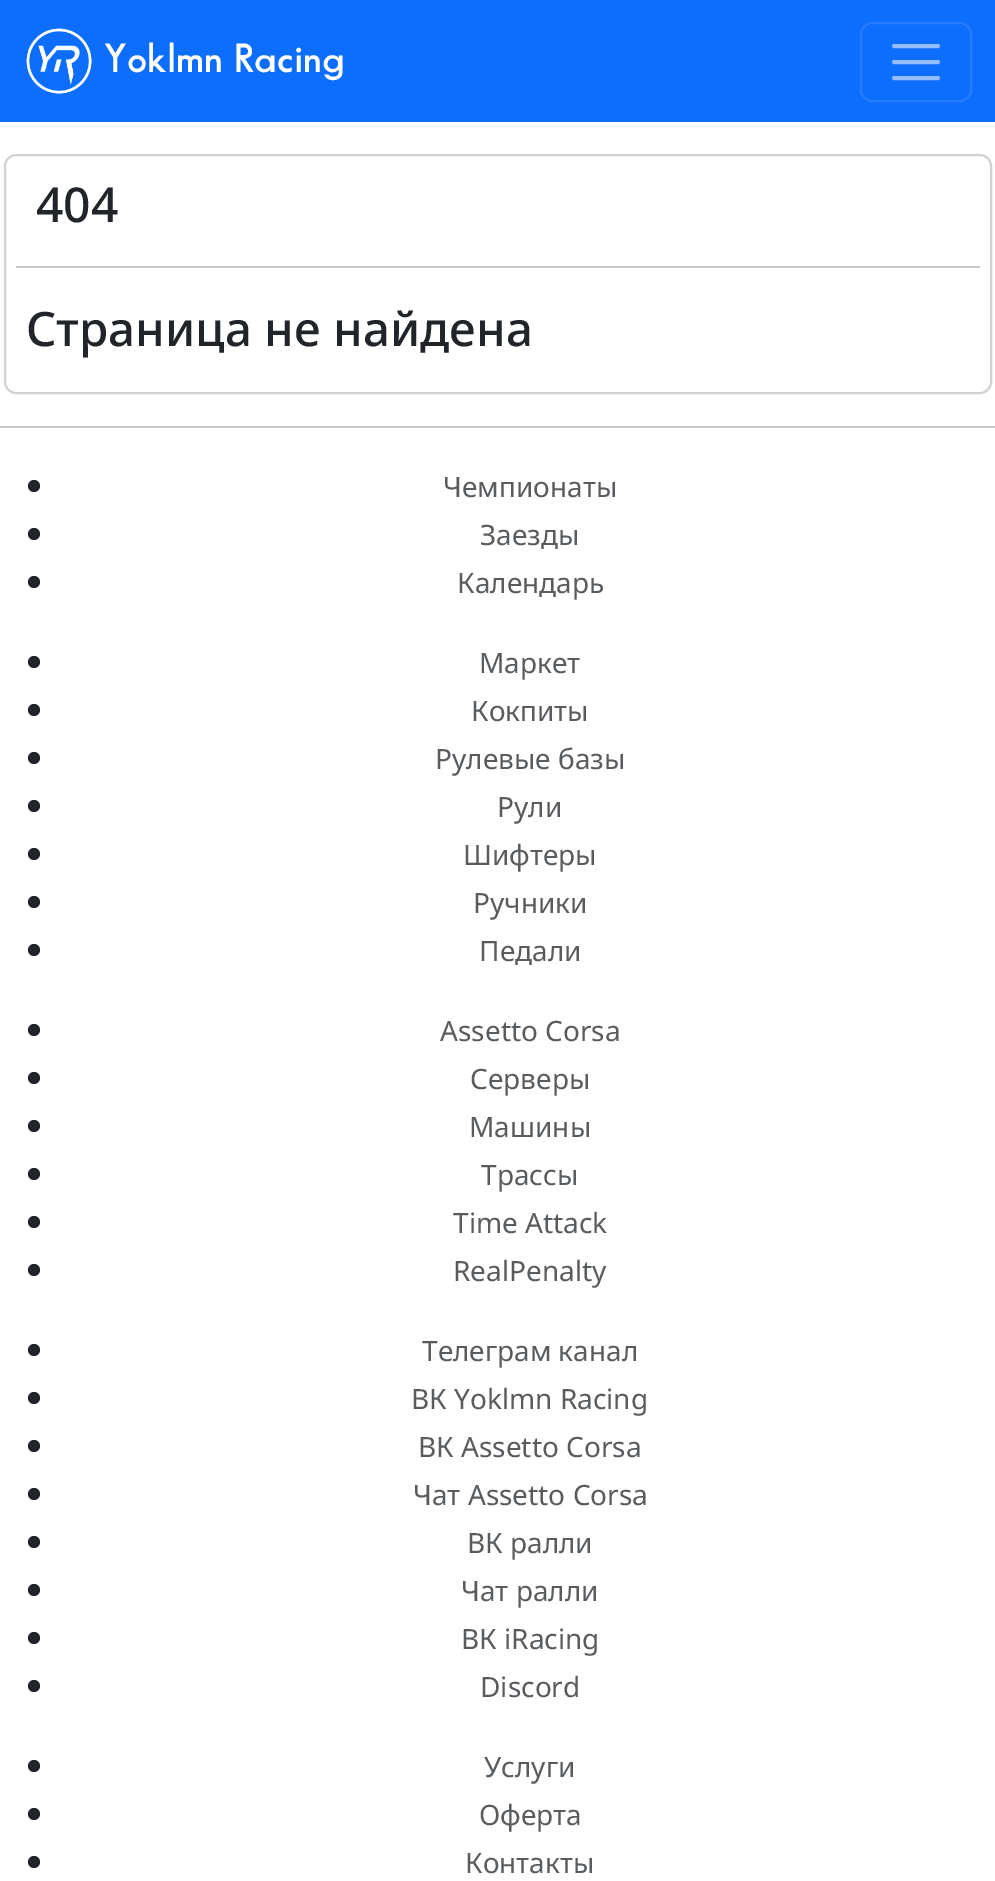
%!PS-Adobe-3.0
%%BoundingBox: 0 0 995 1881
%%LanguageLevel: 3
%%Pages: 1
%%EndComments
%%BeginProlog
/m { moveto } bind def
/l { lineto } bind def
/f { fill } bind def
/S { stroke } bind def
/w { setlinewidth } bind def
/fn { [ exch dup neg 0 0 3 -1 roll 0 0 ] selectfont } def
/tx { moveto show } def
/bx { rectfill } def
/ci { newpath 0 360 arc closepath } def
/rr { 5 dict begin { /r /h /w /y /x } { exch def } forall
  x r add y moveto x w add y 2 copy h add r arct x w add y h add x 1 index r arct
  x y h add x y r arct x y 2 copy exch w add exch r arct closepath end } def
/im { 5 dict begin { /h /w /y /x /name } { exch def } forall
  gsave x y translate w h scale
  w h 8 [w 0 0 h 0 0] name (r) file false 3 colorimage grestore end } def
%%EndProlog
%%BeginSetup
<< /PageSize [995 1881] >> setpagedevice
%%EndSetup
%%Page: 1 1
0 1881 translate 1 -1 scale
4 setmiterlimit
1 setgray
0 0 995 1881 bx
0.051 0.431 0.992 setrgbcolor
0 0 995 122 bx
(image0.raw) 26 28 66 66 im
/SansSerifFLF-SemiBold 40 fn
1 setgray
(Yoklmn Racing) 104 72 tx
0.145 0.49 0.992 setrgbcolor
2 w
861 23 110 78 11 rr S
0.573 0.745 0.996 setrgbcolor
4 w
1 setlinecap
894 46 m 938 46 l 894 62 m 938 62 l 894 78 m 938 78 l S
0.824 setgray
2 w
0 setlinecap
5 155 986 238 11 rr S
/NotoSans-Medium 48 fn
0.129 0.145 0.161 setrgbcolor
(404) 36 222 tx
0.784 0.788 0.792 setrgbcolor
16 266 964 2 bx
/NotoSans-Medium 47.5 fn
0.129 0.145 0.161 setrgbcolor
(Страница не найдена) 26 346 tx
0.784 0.788 0.792 setrgbcolor
0 426 995 2 bx
0.129 0.145 0.161 setrgbcolor
34 486 6 ci f
/NotoSans-Regular 28 fn
0.349 0.361 0.373 setrgbcolor
(Чемпионаты) 443 497 tx
0.129 0.145 0.161 setrgbcolor
34 534 6 ci f
0.349 0.361 0.373 setrgbcolor
(Заезды) 480 545 tx
0.129 0.145 0.161 setrgbcolor
34 582 6 ci f
0.349 0.361 0.373 setrgbcolor
(Календарь) 457 593 tx
0.129 0.145 0.161 setrgbcolor
34 662 6 ci f
0.349 0.361 0.373 setrgbcolor
(Маркет) 479 673 tx
0.129 0.145 0.161 setrgbcolor
34 710 6 ci f
0.349 0.361 0.373 setrgbcolor
(Кокпиты) 471 721 tx
0.129 0.145 0.161 setrgbcolor
34 758 6 ci f
0.349 0.361 0.373 setrgbcolor
(Рулевые базы) 435 769 tx
0.129 0.145 0.161 setrgbcolor
34 806 6 ci f
0.349 0.361 0.373 setrgbcolor
(Рули) 497 817 tx
0.129 0.145 0.161 setrgbcolor
34 854 6 ci f
0.349 0.361 0.373 setrgbcolor
(Шифтеры) 463 865 tx
0.129 0.145 0.161 setrgbcolor
34 902 6 ci f
0.349 0.361 0.373 setrgbcolor
(Ручники) 473 913 tx
0.129 0.145 0.161 setrgbcolor
34 950 6 ci f
0.349 0.361 0.373 setrgbcolor
(Педали) 479 961 tx
0.129 0.145 0.161 setrgbcolor
34 1030 6 ci f
0.349 0.361 0.373 setrgbcolor
(Assetto Corsa) 440 1041 tx
0.129 0.145 0.161 setrgbcolor
34 1078 6 ci f
0.349 0.361 0.373 setrgbcolor
(Серверы) 470 1089 tx
0.129 0.145 0.161 setrgbcolor
34 1126 6 ci f
0.349 0.361 0.373 setrgbcolor
(Машины) 469 1137 tx
0.129 0.145 0.161 setrgbcolor
34 1174 6 ci f
0.349 0.361 0.373 setrgbcolor
(Трассы) 481 1185 tx
0.129 0.145 0.161 setrgbcolor
34 1222 6 ci f
0.349 0.361 0.373 setrgbcolor
(Time Attack) 453 1233 tx
0.129 0.145 0.161 setrgbcolor
34 1270 6 ci f
0.349 0.361 0.373 setrgbcolor
(RealPenalty) 453 1281 tx
0.129 0.145 0.161 setrgbcolor
34 1350 6 ci f
0.349 0.361 0.373 setrgbcolor
(Телеграм канал) 422 1361 tx
0.129 0.145 0.161 setrgbcolor
34 1398 6 ci f
0.349 0.361 0.373 setrgbcolor
(ВК Yoklmn Racing) 411 1409 tx
0.129 0.145 0.161 setrgbcolor
34 1446 6 ci f
0.349 0.361 0.373 setrgbcolor
(ВК Assetto Corsa) 418 1457 tx
0.129 0.145 0.161 setrgbcolor
34 1494 6 ci f
0.349 0.361 0.373 setrgbcolor
(Чат Assetto Corsa) 413 1505 tx
0.129 0.145 0.161 setrgbcolor
34 1542 6 ci f
0.349 0.361 0.373 setrgbcolor
(ВК ралли) 467 1553 tx
0.129 0.145 0.161 setrgbcolor
34 1590 6 ci f
0.349 0.361 0.373 setrgbcolor
(Чат ралли) 461 1601 tx
0.129 0.145 0.161 setrgbcolor
34 1638 6 ci f
0.349 0.361 0.373 setrgbcolor
(ВК iRacing) 461 1649 tx
0.129 0.145 0.161 setrgbcolor
34 1686 6 ci f
0.349 0.361 0.373 setrgbcolor
(Discord) 480 1697 tx
0.129 0.145 0.161 setrgbcolor
34 1766 6 ci f
0.349 0.361 0.373 setrgbcolor
(Услуги) 484 1777 tx
0.129 0.145 0.161 setrgbcolor
34 1814 6 ci f
0.349 0.361 0.373 setrgbcolor
(Оферта) 479 1825 tx
0.129 0.145 0.161 setrgbcolor
34 1862 6 ci f
0.349 0.361 0.373 setrgbcolor
(Контакты) 465 1873 tx
showpage
%%EOF
